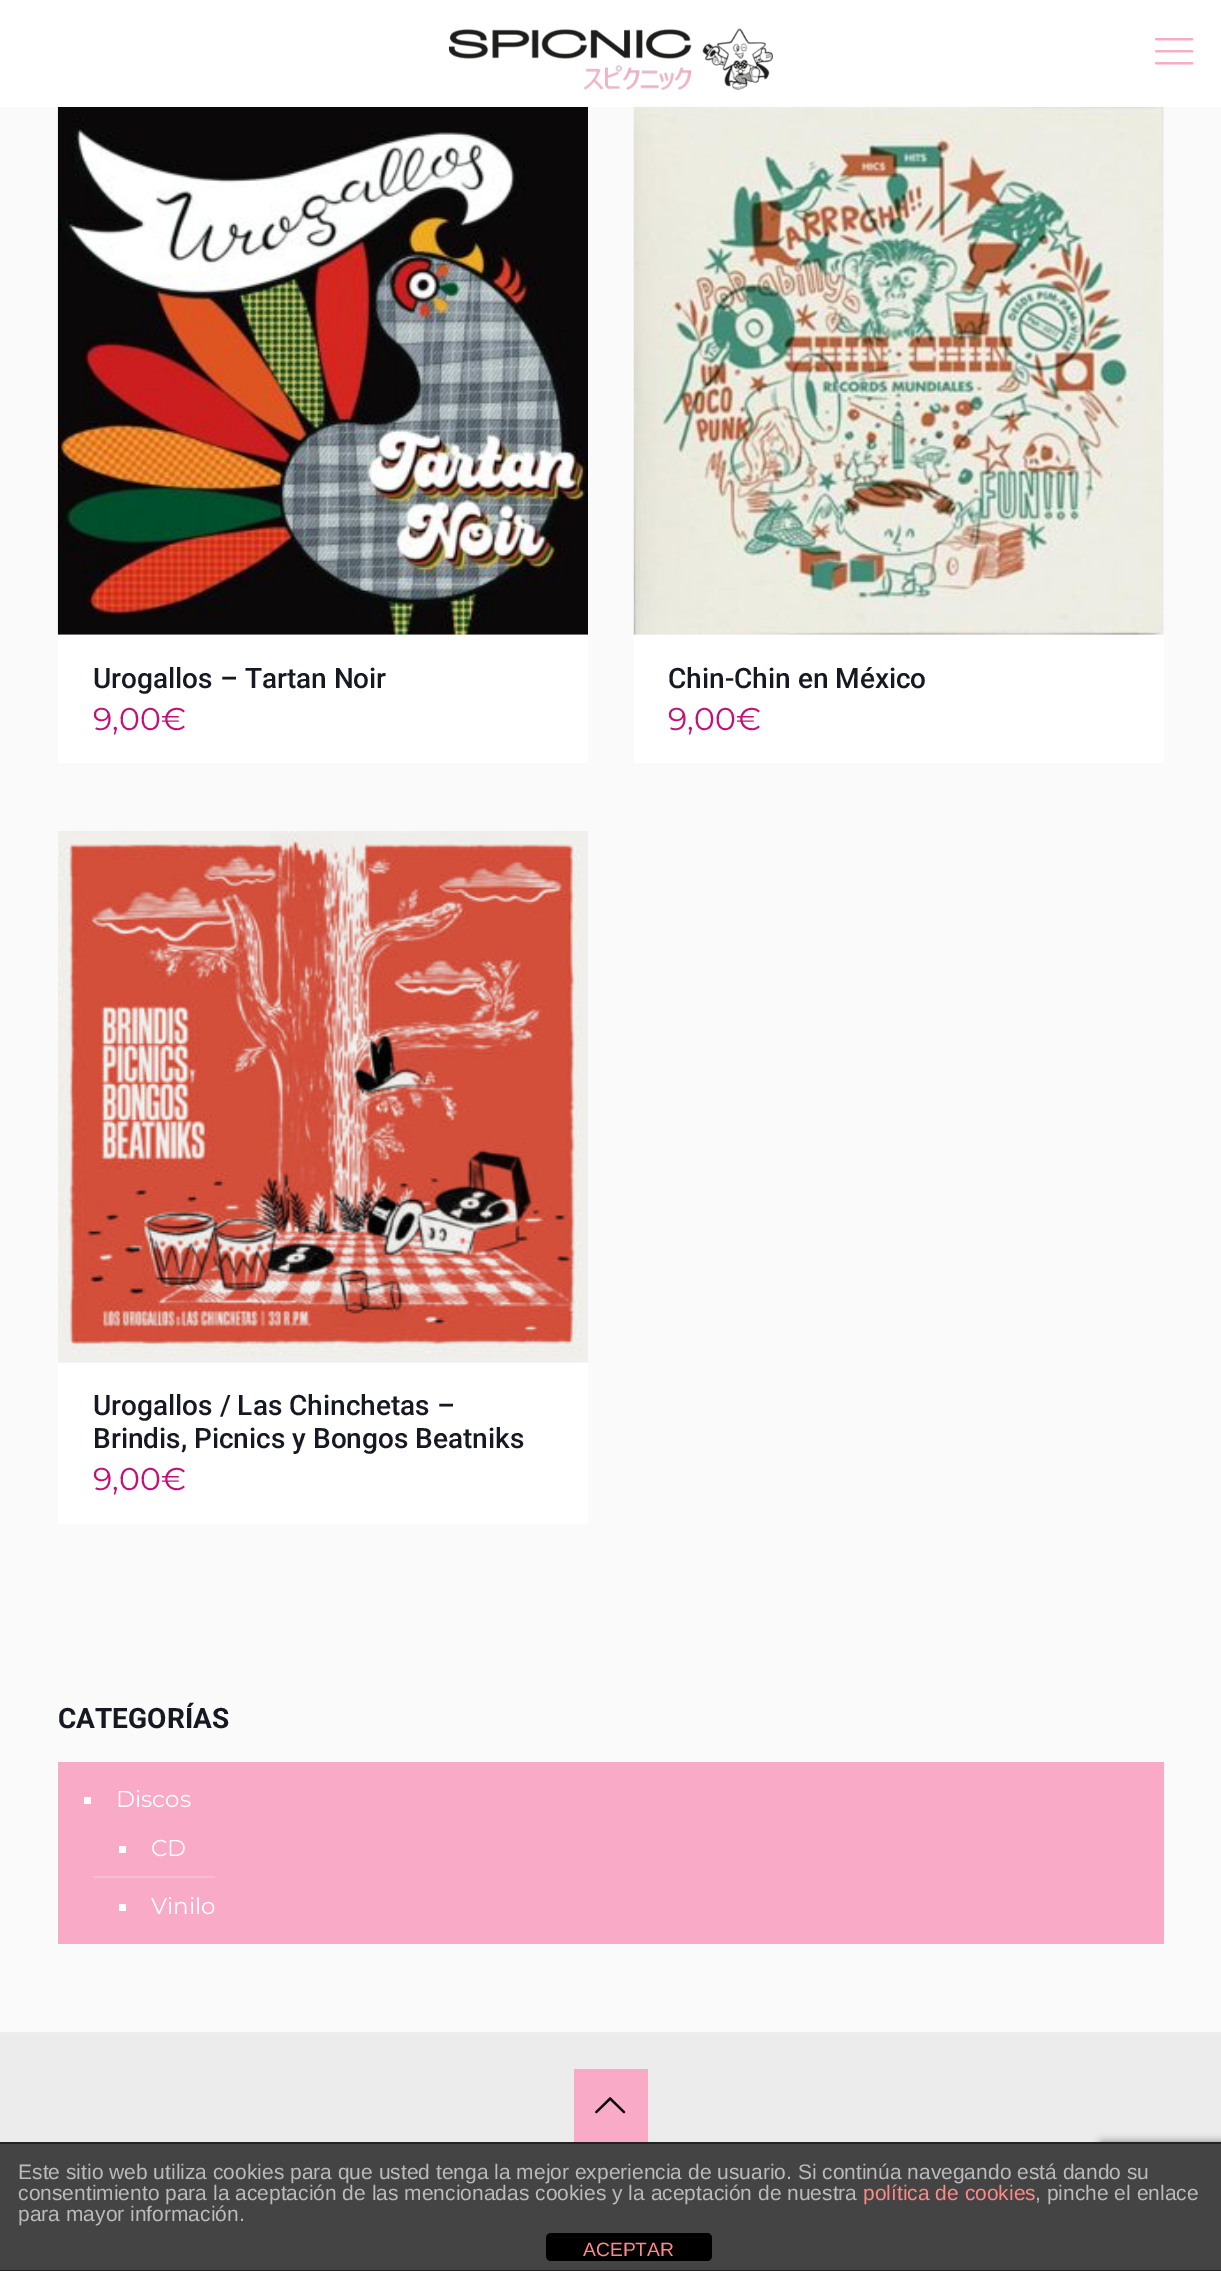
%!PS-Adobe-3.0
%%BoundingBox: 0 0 1221 2271
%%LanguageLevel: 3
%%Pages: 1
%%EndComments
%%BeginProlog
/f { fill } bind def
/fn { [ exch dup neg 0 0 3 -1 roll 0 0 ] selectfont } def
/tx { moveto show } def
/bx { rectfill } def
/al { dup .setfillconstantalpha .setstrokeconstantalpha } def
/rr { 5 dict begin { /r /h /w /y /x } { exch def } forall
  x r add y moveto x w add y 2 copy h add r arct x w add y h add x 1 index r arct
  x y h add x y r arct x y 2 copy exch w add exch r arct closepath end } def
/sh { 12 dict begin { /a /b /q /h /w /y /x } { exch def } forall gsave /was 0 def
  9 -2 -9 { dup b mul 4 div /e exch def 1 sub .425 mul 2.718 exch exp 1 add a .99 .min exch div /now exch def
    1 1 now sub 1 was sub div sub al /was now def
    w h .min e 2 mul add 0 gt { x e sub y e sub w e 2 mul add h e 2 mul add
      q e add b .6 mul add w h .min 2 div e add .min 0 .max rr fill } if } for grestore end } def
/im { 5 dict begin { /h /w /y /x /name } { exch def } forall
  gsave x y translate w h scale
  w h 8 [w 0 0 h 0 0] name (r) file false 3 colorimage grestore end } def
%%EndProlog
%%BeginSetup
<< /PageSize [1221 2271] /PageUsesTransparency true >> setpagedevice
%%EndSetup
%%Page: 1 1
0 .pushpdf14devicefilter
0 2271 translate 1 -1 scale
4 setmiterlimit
0.98 setgray
0 0 1221 2271 bx
1 setgray
0 0 1221 107 bx
(image0.raw) 448 28 326 62 im
(image1.raw) 1155 38 39 27 im
(image2.raw) 57 107 531 528 im
58 635 530 128 bx
/Roboto-Medium 28 fn
0.086 0.098 0.133 setrgbcolor
(Urogallos – Tartan Noir) 93 688 tx
/Montserrat-Regular 31.5 fn
0.769 0.059 0.459 setrgbcolor
(9,00€) 93 730 tx
(image3.raw) 633 107 531 528 im
1 setgray
634 635 530 128 bx
/Roboto-Medium 28 fn
0.086 0.098 0.133 setrgbcolor
(Chin-Chin en México) 668 688 tx
/Montserrat-Regular 31.5 fn
0.769 0.059 0.459 setrgbcolor
(9,00€) 668 730 tx
(image4.raw) 58 831 530 532 im
1 setgray
58 1363 530 161 bx
/Roboto-Medium 28 fn
0.086 0.098 0.133 setrgbcolor
(Urogallos / Las Chinchetas –) 93 1415 tx
(Brindis, Picnics y Bongos Beatniks) 93 1448 tx
/Montserrat-Regular 31.5 fn
0.769 0.059 0.459 setrgbcolor
(9,00€) 93 1490 tx
/Roboto-Bold 28 fn
0.086 0.098 0.133 setrgbcolor
(CATEGORÍAS) 58 1728 tx
0.973 0.667 0.776 setrgbcolor
58 1762 1106 182 bx
1 setgray
84 1797 7 7 bx
/Montserrat-Regular 23 fn
(Discos) 116 1807 tx
119 1846 7 7 bx
(CD) 151 1856 tx
0.976 0.733 0.82 setrgbcolor
93 1876 122 2 bx
1 setgray
119 1904 7 7 bx
(Vinilo) 151 1914 tx
0.925 setgray
0 2034 1221 108 bx
0.933 setgray
0 2032 1221 2 bx
0.973 0.667 0.776 setrgbcolor
574 2069 74 73 bx
(image5.raw) 595 2097 31 17 im
0.502 setgray
1099 2142 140 105 4 4.5 1 sh
0.267 setgray
0 2144 1221 126 bx
0.133 setgray
0 2142 1221 2 bx
0 2270 1221 1 bx
/LiberationSans-Regular 21 fn
0.733 setgray
(Este sitio web utiliza cookies para que usted tenga la mejor experiencia de usuario. Si continúa navegando está dando su) 18 2179 tx
(consentimiento para la aceptación de las mencionadas cookies y la aceptación de nuestra) 18 2200 tx
1 0.533 0.533 setrgbcolor
(política de cookies) 863 2200 tx
0.733 setgray
(, pinche el enlace) 1035 2200 tx
(para mayor información.) 18 2221 tx
0 setgray
546 2233 166 28 5 rr f
/LiberationSans-Regular 19.25 fn
1 0.533 0.533 setrgbcolor
(ACEPTAR) 583 2256 tx
.poppdf14devicefilter showpage
%%EOF
